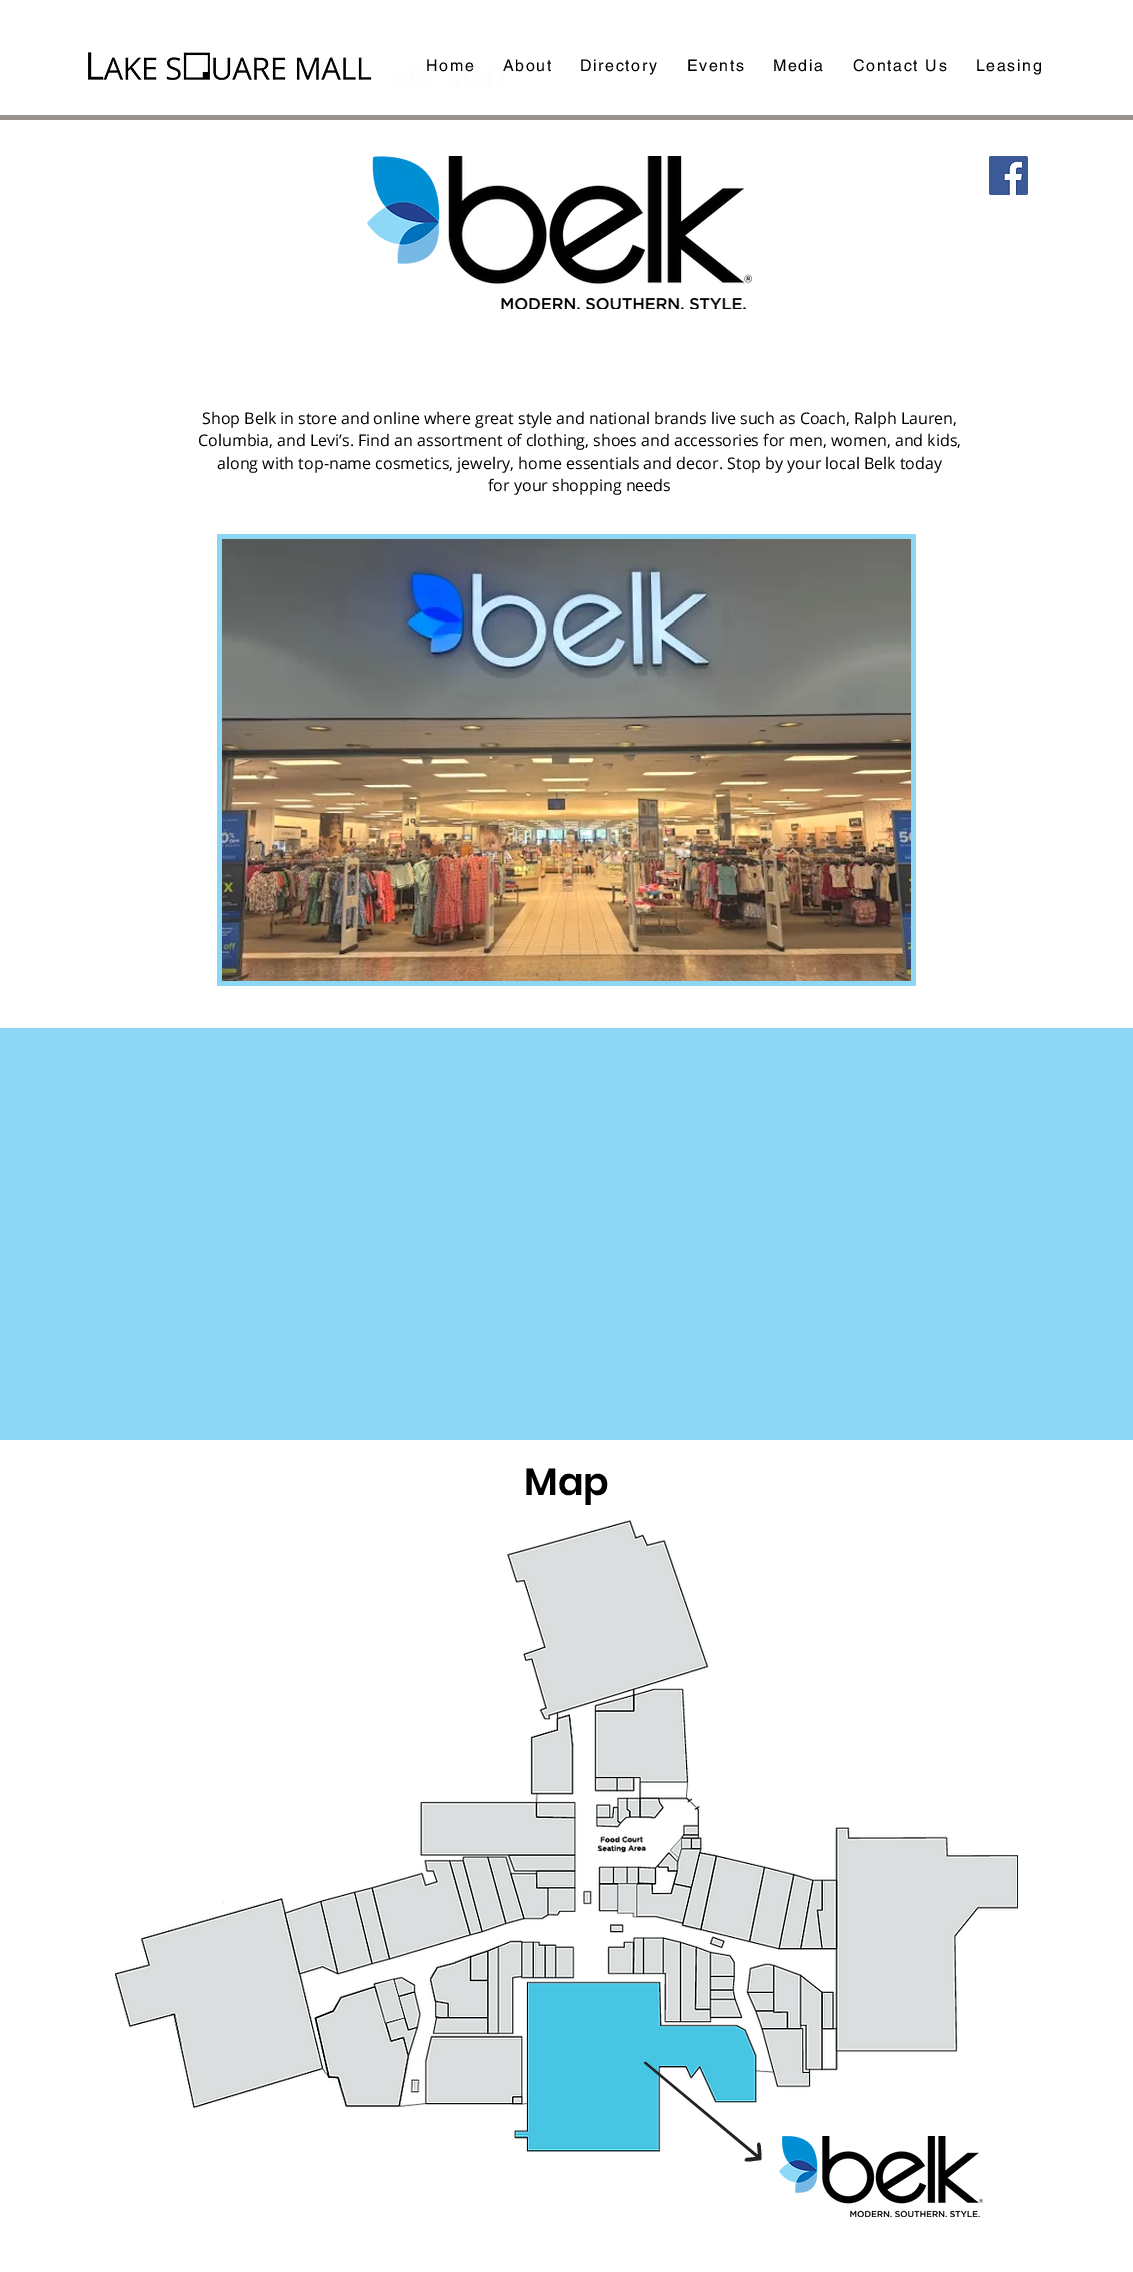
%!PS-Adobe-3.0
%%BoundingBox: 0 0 1133 2272
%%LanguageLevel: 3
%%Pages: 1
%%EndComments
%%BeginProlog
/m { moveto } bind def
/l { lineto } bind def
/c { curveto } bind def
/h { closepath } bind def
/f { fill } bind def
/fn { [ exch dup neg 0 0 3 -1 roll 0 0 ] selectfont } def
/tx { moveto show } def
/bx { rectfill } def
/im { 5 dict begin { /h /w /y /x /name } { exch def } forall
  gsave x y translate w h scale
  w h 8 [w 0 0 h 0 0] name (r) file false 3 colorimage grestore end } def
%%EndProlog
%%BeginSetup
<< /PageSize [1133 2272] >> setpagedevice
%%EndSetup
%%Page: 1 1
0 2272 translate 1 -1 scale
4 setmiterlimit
1 setgray
0 0 1133 2272 bx
(image0.raw) 88 50 302 37 im
(image1.raw) 390 67 115 20 im
/helvetica-Regular 16 fn
0 setgray
426 71 m 1.6 0 (Home) ashow
503 71 m 1.6 0 (About) ashow
580 71 m 1.6 0 (Directory) ashow
687 71 m 1.6 0 (Events) ashow
773 71 m 1.6 0 (Media) ashow
853 71 m 1.6 0 (Contact Us) ashow
976 71 m 1.6 0 (Leasing) ashow
0.6 0.576 0.557 setrgbcolor
0 115 1133 5 bx
(image2.raw) 367 156 385 153 im
(image3.raw) 989 156 39 39 im
/OpenSans-Regular 16 fn
0 setgray
(Shop Belk in store and online where great style and national brands live such as Coach, Ralph Lauren,) 202 424 tx
(Columbia, and Levi’s. Find an assortment of clothing, shoes and accessories for men, women, and kids,) 198 446 tx
(along with top-name cosmetics, jewelry, home essentials and decor. Stop by your local Belk today) 217 469 tx
(for your shopping needs) 488 491 tx
0.557 0.843 0.957 setrgbcolor
217 534 699 452 bx
(image4.raw) 222 539 689 442 im
0 1028 1133 412 bx
/Poppins-SemiBold 38 fn
0 setgray
(Map) 524 1495 tx
(image5.raw) 115 1520 903 632 im
0.141 0.137 0.137 setrgbcolor
645 2064 m 756 2157 l 746 2158 l 745 2159 l 743 2163 752 2161 753 2161 c 761 2160 l 762 2158 761 2151 761 2149 c 761 2149 761 2141 758 2143 c 757 2144 l 758 2155 l 646 2062 l 645 2061 643 2063 645 2064 c h f
(image6.raw) 779 2136 204 81 im
showpage
%%EOF
